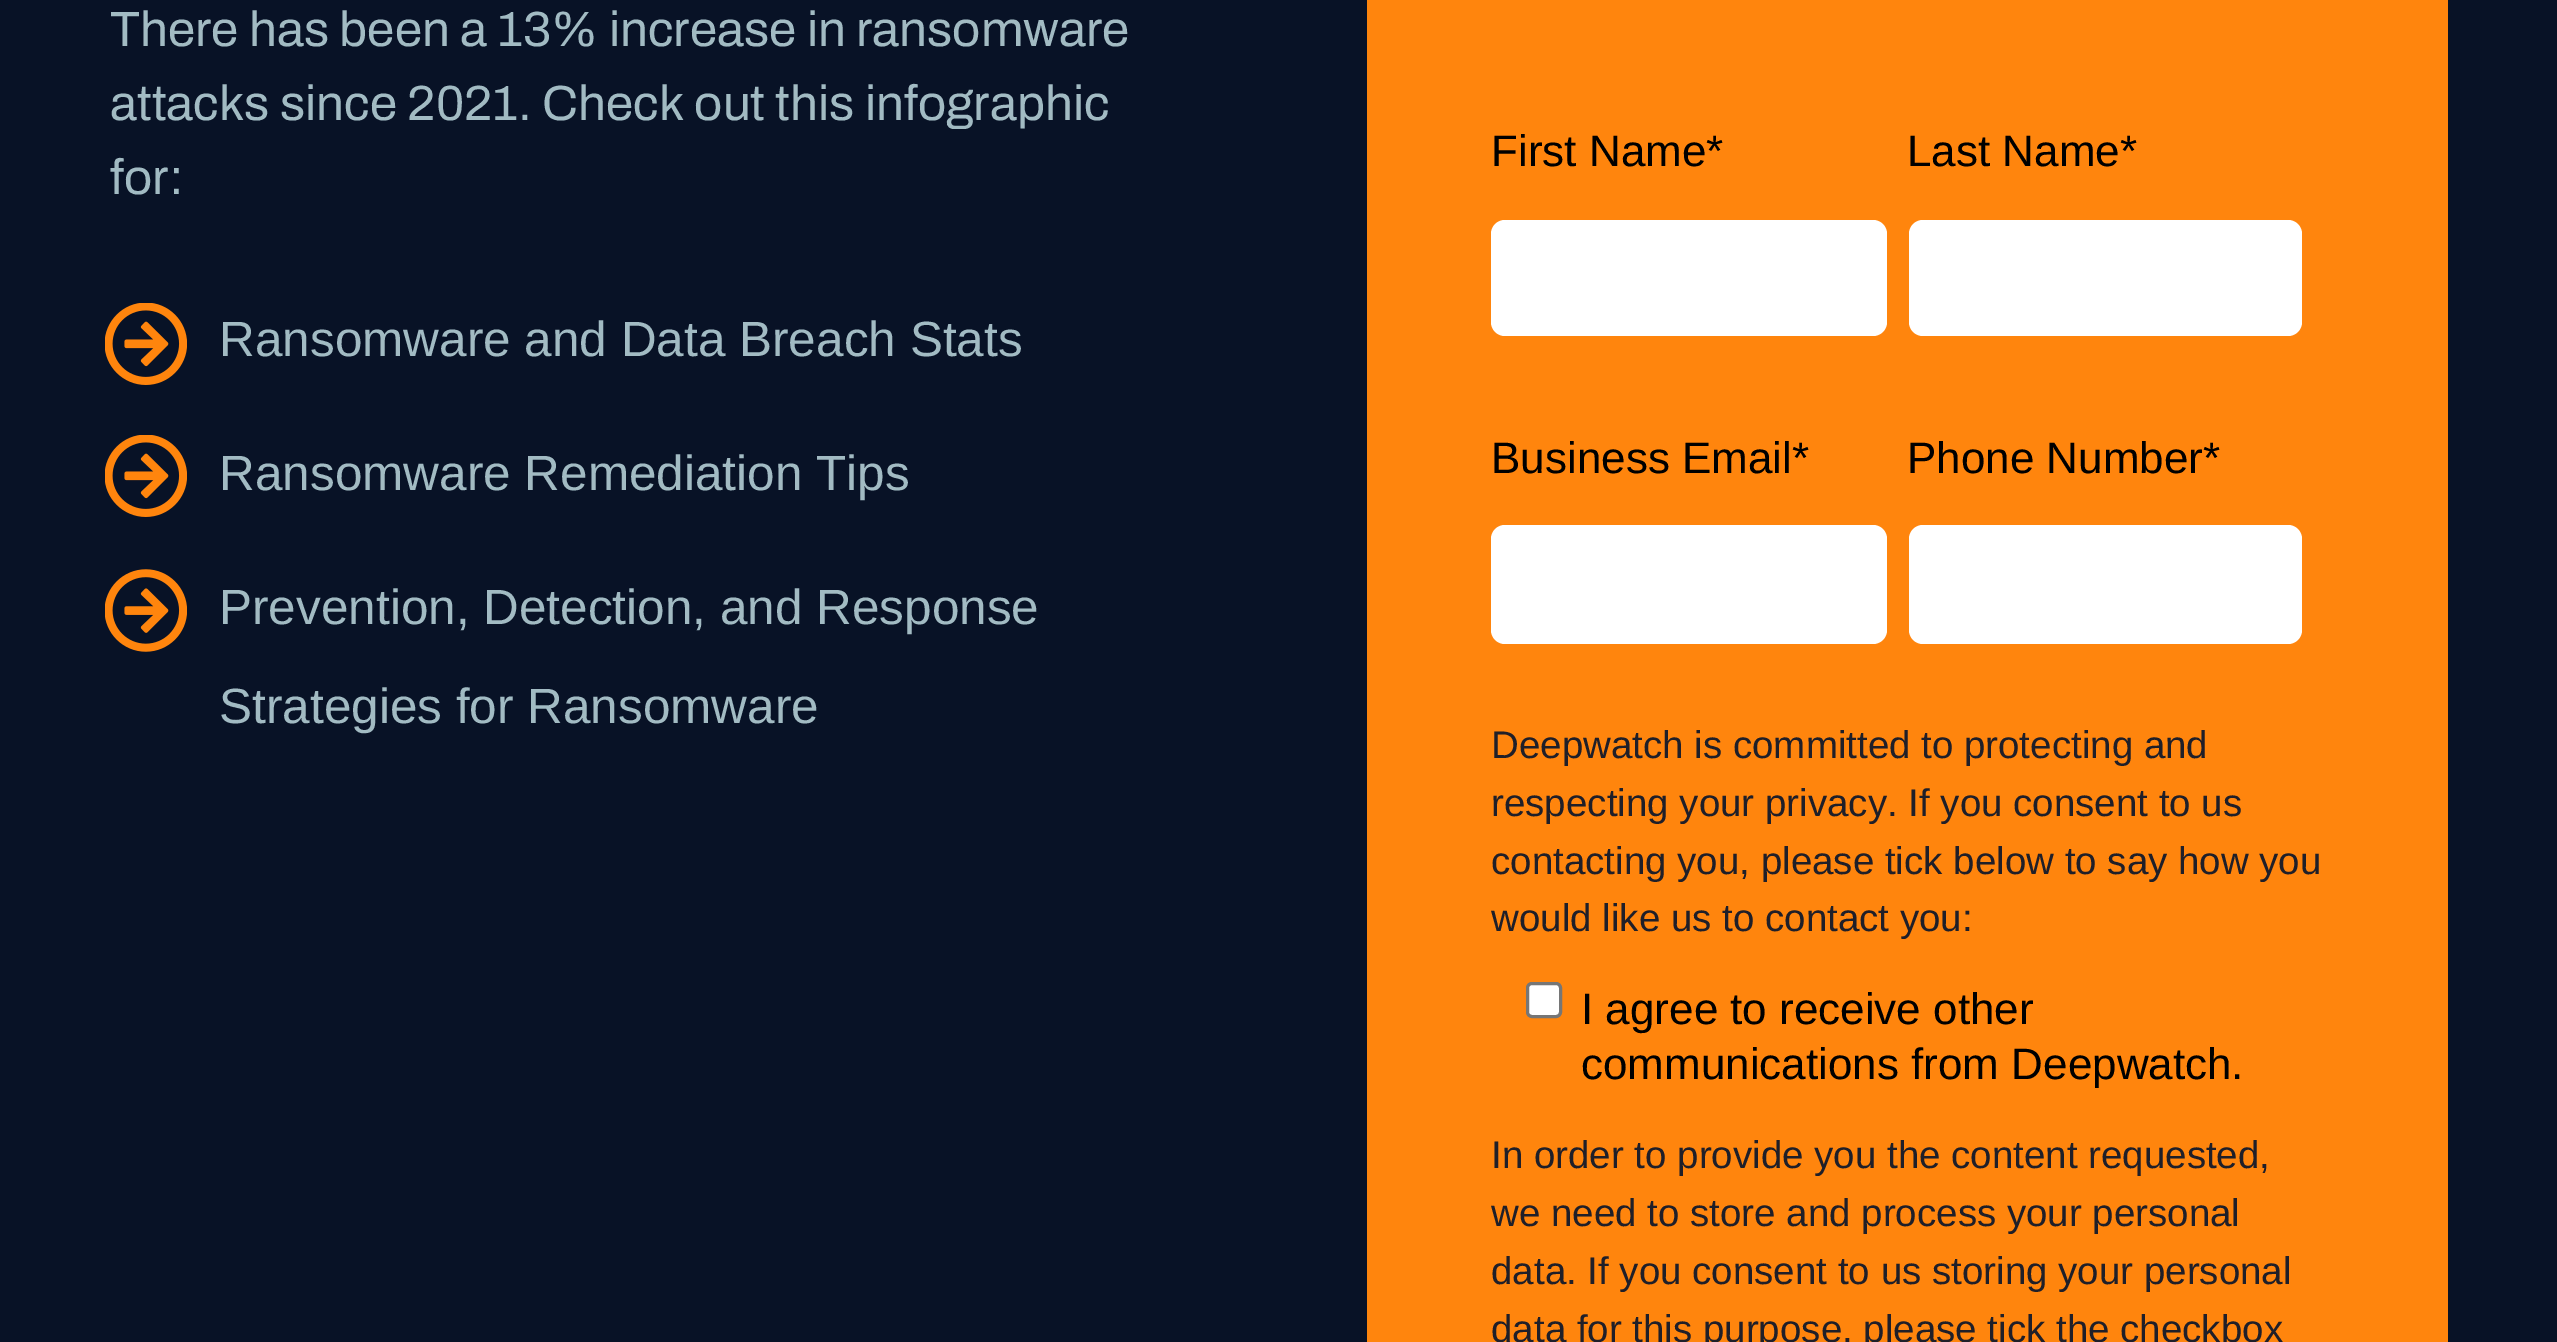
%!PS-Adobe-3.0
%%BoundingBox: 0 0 2557 1342
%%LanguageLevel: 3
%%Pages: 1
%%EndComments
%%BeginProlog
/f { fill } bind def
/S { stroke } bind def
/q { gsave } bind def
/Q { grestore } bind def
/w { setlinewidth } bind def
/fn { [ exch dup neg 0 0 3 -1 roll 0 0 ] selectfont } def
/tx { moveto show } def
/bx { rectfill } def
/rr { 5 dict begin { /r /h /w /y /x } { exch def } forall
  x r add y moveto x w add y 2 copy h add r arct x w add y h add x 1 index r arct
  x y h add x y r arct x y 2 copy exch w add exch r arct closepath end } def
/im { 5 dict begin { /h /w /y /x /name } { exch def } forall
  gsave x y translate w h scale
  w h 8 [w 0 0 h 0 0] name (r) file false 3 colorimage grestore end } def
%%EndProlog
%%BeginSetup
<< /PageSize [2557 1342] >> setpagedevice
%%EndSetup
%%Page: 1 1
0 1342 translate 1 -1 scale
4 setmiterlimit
0.031 0.071 0.149 setrgbcolor
0 0 2557 1342 bx
/Archivo-Regular 49.5 fn
0.635 0.733 0.765 setrgbcolor
(There has been a 13% increase in ransomware) 110 46 tx
(attacks since 2021. Check out this infographic) 110 120 tx
(for:) 110 194 tx
(image0.raw) 105 303 82 82 im
/LiberationSans-Regular 49.5 fn
(Ransomware and Data Breach Stats) 219 356 tx
(image0.raw) 105 435 82 82 im
(Ransomware Remediation Tips) 219 490 tx
(image1.raw) 105 569 82 83 im
(Prevention, Detection, and Response) 219 624 tx
(Strategies for Ransomware) 219 723 tx
1 0.522 0.051 setrgbcolor
1367 0 1081 1342 bx
/LiberationSans-Regular 44 fn
0 setgray
(First Name*) 1491 166 tx
1 setgray
1491 220 396 116 14 rr f
0 setgray
(Last Name*) 1907 166 tx
1 setgray
1909 220 393 116 14 rr f
0 setgray
(Business Email*) 1491 473 tx
1 setgray
1491 525 396 119 14 rr f
0 setgray
(Phone Number*) 1907 473 tx
1 setgray
1909 525 393 119 14 rr f
/LiberationSans-Regular 38.5 fn
0.122 0.122 0.161 setrgbcolor
(Deepwatch is committed to protecting and) 1491 758 tx
(respecting your privacy. If you consent to us) 1491 816 tx
(contacting you, please tick below to say how you) 1491 874 tx
(would like us to contact you:) 1491 931 tx
1 setgray
1527.5 983.5 33 33 4.5 rr q f Q
0.463 setgray
3 w
S
/LiberationSans-Regular 44 fn
0 setgray
(I agree to receive other) 1581 1024 tx
(communications from Deepwatch.) 1581 1079 tx
/LiberationSans-Regular 38.5 fn
0.122 0.122 0.161 setrgbcolor
(In order to provide you the content requested,) 1491 1168 tx
(we need to store and process your personal) 1491 1226 tx
(data. If you consent to us storing your personal) 1491 1284 tx
(data for this purpose, please tick the checkbox) 1491 1342 tx
showpage
%%EOF
